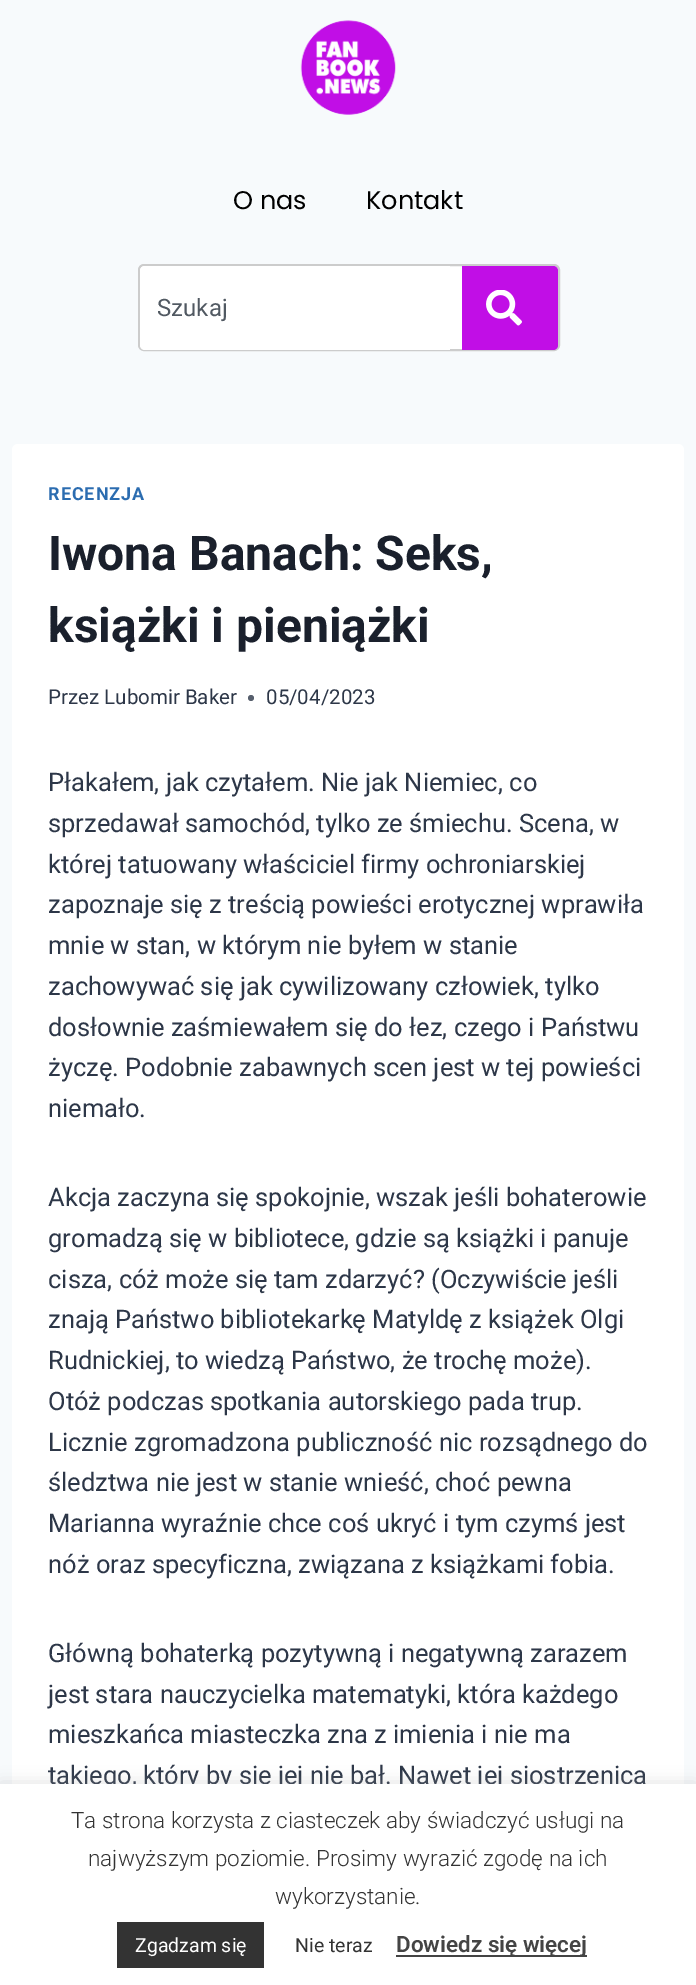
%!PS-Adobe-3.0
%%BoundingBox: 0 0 696 1985
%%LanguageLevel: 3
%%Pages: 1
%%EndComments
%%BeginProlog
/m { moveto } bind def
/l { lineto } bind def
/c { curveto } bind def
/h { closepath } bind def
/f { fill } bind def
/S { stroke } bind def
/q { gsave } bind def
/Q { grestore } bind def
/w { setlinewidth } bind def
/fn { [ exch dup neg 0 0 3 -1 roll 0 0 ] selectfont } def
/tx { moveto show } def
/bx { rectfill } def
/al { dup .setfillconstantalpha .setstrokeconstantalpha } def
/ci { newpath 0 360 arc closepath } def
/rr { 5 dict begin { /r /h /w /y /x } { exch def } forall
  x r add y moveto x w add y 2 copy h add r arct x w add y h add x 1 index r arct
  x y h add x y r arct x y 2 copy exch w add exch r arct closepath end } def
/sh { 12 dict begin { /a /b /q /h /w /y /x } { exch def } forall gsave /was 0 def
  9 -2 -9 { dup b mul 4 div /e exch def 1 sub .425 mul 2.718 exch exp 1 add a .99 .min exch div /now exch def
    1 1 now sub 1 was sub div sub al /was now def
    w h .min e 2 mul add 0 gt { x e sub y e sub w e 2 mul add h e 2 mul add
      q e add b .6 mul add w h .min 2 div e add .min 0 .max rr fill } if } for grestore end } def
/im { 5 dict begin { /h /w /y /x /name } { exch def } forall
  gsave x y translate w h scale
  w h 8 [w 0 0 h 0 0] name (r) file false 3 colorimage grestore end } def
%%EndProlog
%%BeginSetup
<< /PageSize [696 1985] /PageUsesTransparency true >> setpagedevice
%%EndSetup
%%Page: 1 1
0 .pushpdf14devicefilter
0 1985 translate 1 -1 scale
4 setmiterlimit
0.969 0.98 0.988 setrgbcolor
0 0 696 1985 bx
(image0.raw) 300 20 96 95 im
/Poppins-Regular 25.5 fn
0 setgray
(O nas) 233 209 tx
(Kontakt) 366 209 tx
1 setgray
139 265 420 85 5 rr q f Q
0.8 setgray
2 w
S
1 setgray
145 266 m 450 266 l 450 350 l 145 350 l 142 350 140 348 140 345 c 140 271 l 140 268 142 266 145 266 c h f
/Roboto-Regular 24 fn
0.318 0.349 0.384 setrgbcolor
(Szukaj) 157 316 tx
0.757 0.055 0.902 setrgbcolor
462 266 m 553 266 l 556 266 558 268 558 271 c 558 345 l 558 348 556 350 553 350 c 462 350 l h f
(image1.raw) 486 290 36 36 im
1 setgray
12 444 672 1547 6 rr f
/Roboto-Bold 18 fn
0.169 0.424 0.69 setrgbcolor
48 500 m 1 0 (RECENZJA) ashow
/Roboto-Bold 48 fn
0.102 0.125 0.173 setrgbcolor
(Iwona Banach: Seks,) 48 570 tx
(książki i pieniążki) 48 642 tx
/Roboto-Regular 20.5 fn
0.176 0.216 0.282 setrgbcolor
(Przez Lubomir Baker) 48 704 tx
0.341 0.373 0.427 setrgbcolor
251 698 3 ci f
0.176 0.216 0.282 setrgbcolor
(05/04/2023) 266 704 tx
/Roboto-Regular 25.5 fn
(Płakałem, jak czytałem. Nie jak Niemiec, co) 48 791 tx
(sprzedawał samochód, tylko ze śmiechu. Scena, w) 48 832 tx
(której tatuowany właściciel firmy ochroniarskiej) 48 873 tx
(zapoznaje się z treścią powieści erotycznej wprawiła) 48 913 tx
(mnie w stan, w którym nie byłem w stanie) 48 954 tx
(zachowywać się jak cywilizowany człowiek, tylko) 48 995 tx
(dosłownie zaśmiewałem się do łez, czego i Państwu) 48 1036 tx
(życzę. Podobnie zabawnych scen jest w tej powieści) 48 1076 tx
(niemało.) 48 1117 tx
(Akcja zaczyna się spokojnie, wszak jeśli bohaterowie) 48 1206 tx
(gromadzą się w bibliotece, gdzie są książki i panuje) 48 1247 tx
(cisza, cóż może się tam zdarzyć? \(Oczywiście jeśli) 48 1288 tx
(znają Państwo bibliotekarkę Matyldę z książek Olgi) 48 1328 tx
(Rudnickiej, to wiedzą Państwo, że trochę może\).) 48 1369 tx
(Otóż podczas spotkania autorskiego pada trup.) 48 1410 tx
(Licznie zgromadzona publiczność nic rozsądnego do) 48 1451 tx
(śledztwa nie jest w stanie wnieść, choć pewna) 48 1491 tx
(Marianna wyraźnie chce coś ukryć i tym czymś jest) 48 1532 tx
(nóż oraz specyficzna, związana z książkami fobia.) 48 1573 tx
(Główną bohaterką pozytywną i negatywną zarazem) 48 1662 tx
(jest stara nauczycielka matematyki, która każdego) 48 1703 tx
(mieszkańca miasteczka zna z imienia i nie ma) 48 1743 tx
(takiego, który by się jej nie bał. Nawet jej siostrzenica) 48 1784 tx
0.675 0.671 0.671 setrgbcolor
0 1782 696 203 0 7.5 0.3 sh
1 setgray
0 1784 696 201 bx
/Roboto-Light 22.5 fn
0.2 setgray
(Ta strona korzysta z ciasteczek aby świadczyć usługi na) 71 1828 tx
(najwyższym poziomie. Prosimy wyrazić zgodę na ich) 88 1866 tx
(wykorzystanie.) 275 1904 tx
117 1922 147 46 bx
/Roboto-Regular 19.5 fn
1 setgray
(Zgadzam się) 135 1952 tx
0.2 setgray
(Nie teraz) 295 1952 tx
0.267 setgray
396 1955 191 2 bx
/Roboto-SemiBold 22.5 fn
(Dowiedz się więcej) 396 1952 tx
.poppdf14devicefilter showpage
%%EOF
